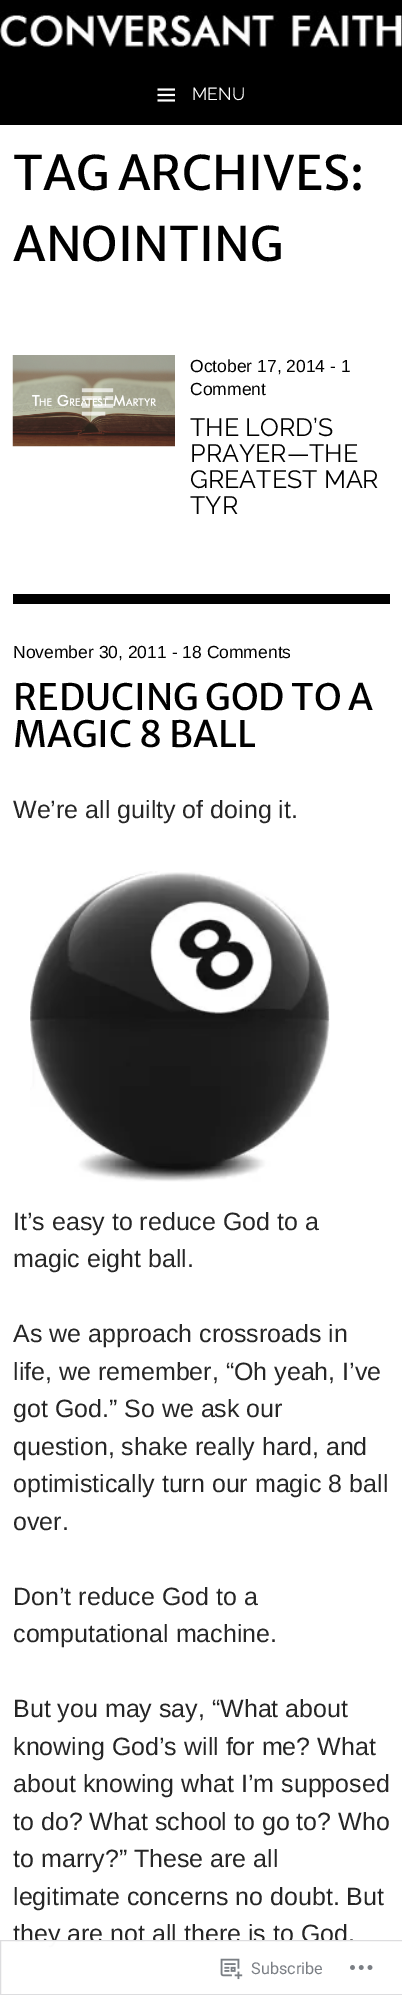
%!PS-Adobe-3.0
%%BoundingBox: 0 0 402 1995
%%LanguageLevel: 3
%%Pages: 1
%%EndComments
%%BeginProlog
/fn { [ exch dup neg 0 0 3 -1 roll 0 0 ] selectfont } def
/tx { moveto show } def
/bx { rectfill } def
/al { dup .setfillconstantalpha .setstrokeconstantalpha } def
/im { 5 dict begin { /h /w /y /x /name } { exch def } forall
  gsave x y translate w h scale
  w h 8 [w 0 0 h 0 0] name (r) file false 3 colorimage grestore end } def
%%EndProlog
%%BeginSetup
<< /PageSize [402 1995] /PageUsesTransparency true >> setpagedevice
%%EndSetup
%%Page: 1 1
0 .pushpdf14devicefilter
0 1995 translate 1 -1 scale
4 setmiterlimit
1 setgray
0 0 402 1995 bx
0 setgray
0 0 402 125 bx
(image0.raw) 0 10 402 38 im
(image1.raw) 157 88 18 14 im
/Raleway-Regular 17.5 fn
1 setgray
(MENU) 192 100 tx
/MerriweatherSans-Regular 47.5 fn
0 setgray
(TAG ARCHIVES:) 13 190 tx
(ANOINTING) 13 261 tx
13 594 377 10 bx
(image2.raw) 12 355 163 92 im
(image3.raw) 81 388 33 28 im
/LiberationSans-Regular 17.5 fn
(October 17, 2014 - 1) 190 372 tx
(Comment) 190 395 tx
/Raleway-Regular 25 fn
(THE LORD’S) 190 436 tx
(PRAYER—THE) 190 462 tx
(GREATEST MAR) 190 488 tx
(TYR) 190 514 tx
/LiberationSans-Regular 17.5 fn
(November 30, 2011 - 18 Comments) 13 658 tx
/MerriweatherSans-Regular 36.25 fn
(REDUCING GOD TO A) 13 710 tx
(MAGIC 8 BALL) 13 747 tx
/LiberationSans-Regular 25 fn
0.149 setgray
(We’re all guilty of doing it.) 13 818 tx
(image4.raw) 30 871 300 311 im
(It’s easy to reduce God to a) 13 1230 tx
(magic eight ball.) 13 1267 tx
(As we approach crossroads in) 13 1342 tx
(life, we remember, “Oh yeah, I’ve) 13 1380 tx
(got God.” So we ask our) 13 1417 tx
(question, shake really hard, and) 13 1455 tx
(optimistically turn our magic 8 ball) 13 1492 tx
(over.) 13 1530 tx
(Don’t reduce God to a) 13 1605 tx
(computational machine.) 13 1642 tx
(But you may say, “What about) 13 1717 tx
(knowing God’s will for me? What) 13 1755 tx
(about knowing what I’m supposed) 13 1792 tx
(to do? What school to go to? Who) 13 1830 tx
(to marry?” These are all) 13 1867 tx
(legitimate concerns no doubt. But) 13 1905 tx
(they are not all there is to God.) 13 1942 tx
0.98 al
1 setgray
14 1940 339 8 bx
0.863 0.863 0.871 setrgbcolor
0.5 1940.5 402 54 rectstroke
1 al
(image5.raw) 220 1958 23 22 im
/Roboto-Regular 16.25 fn
0.482 0.498 0.522 setrgbcolor
(Subscribe) 251 1974 tx
(image6.raw) 350 1965 23 5 im
.poppdf14devicefilter showpage
%%EOF
